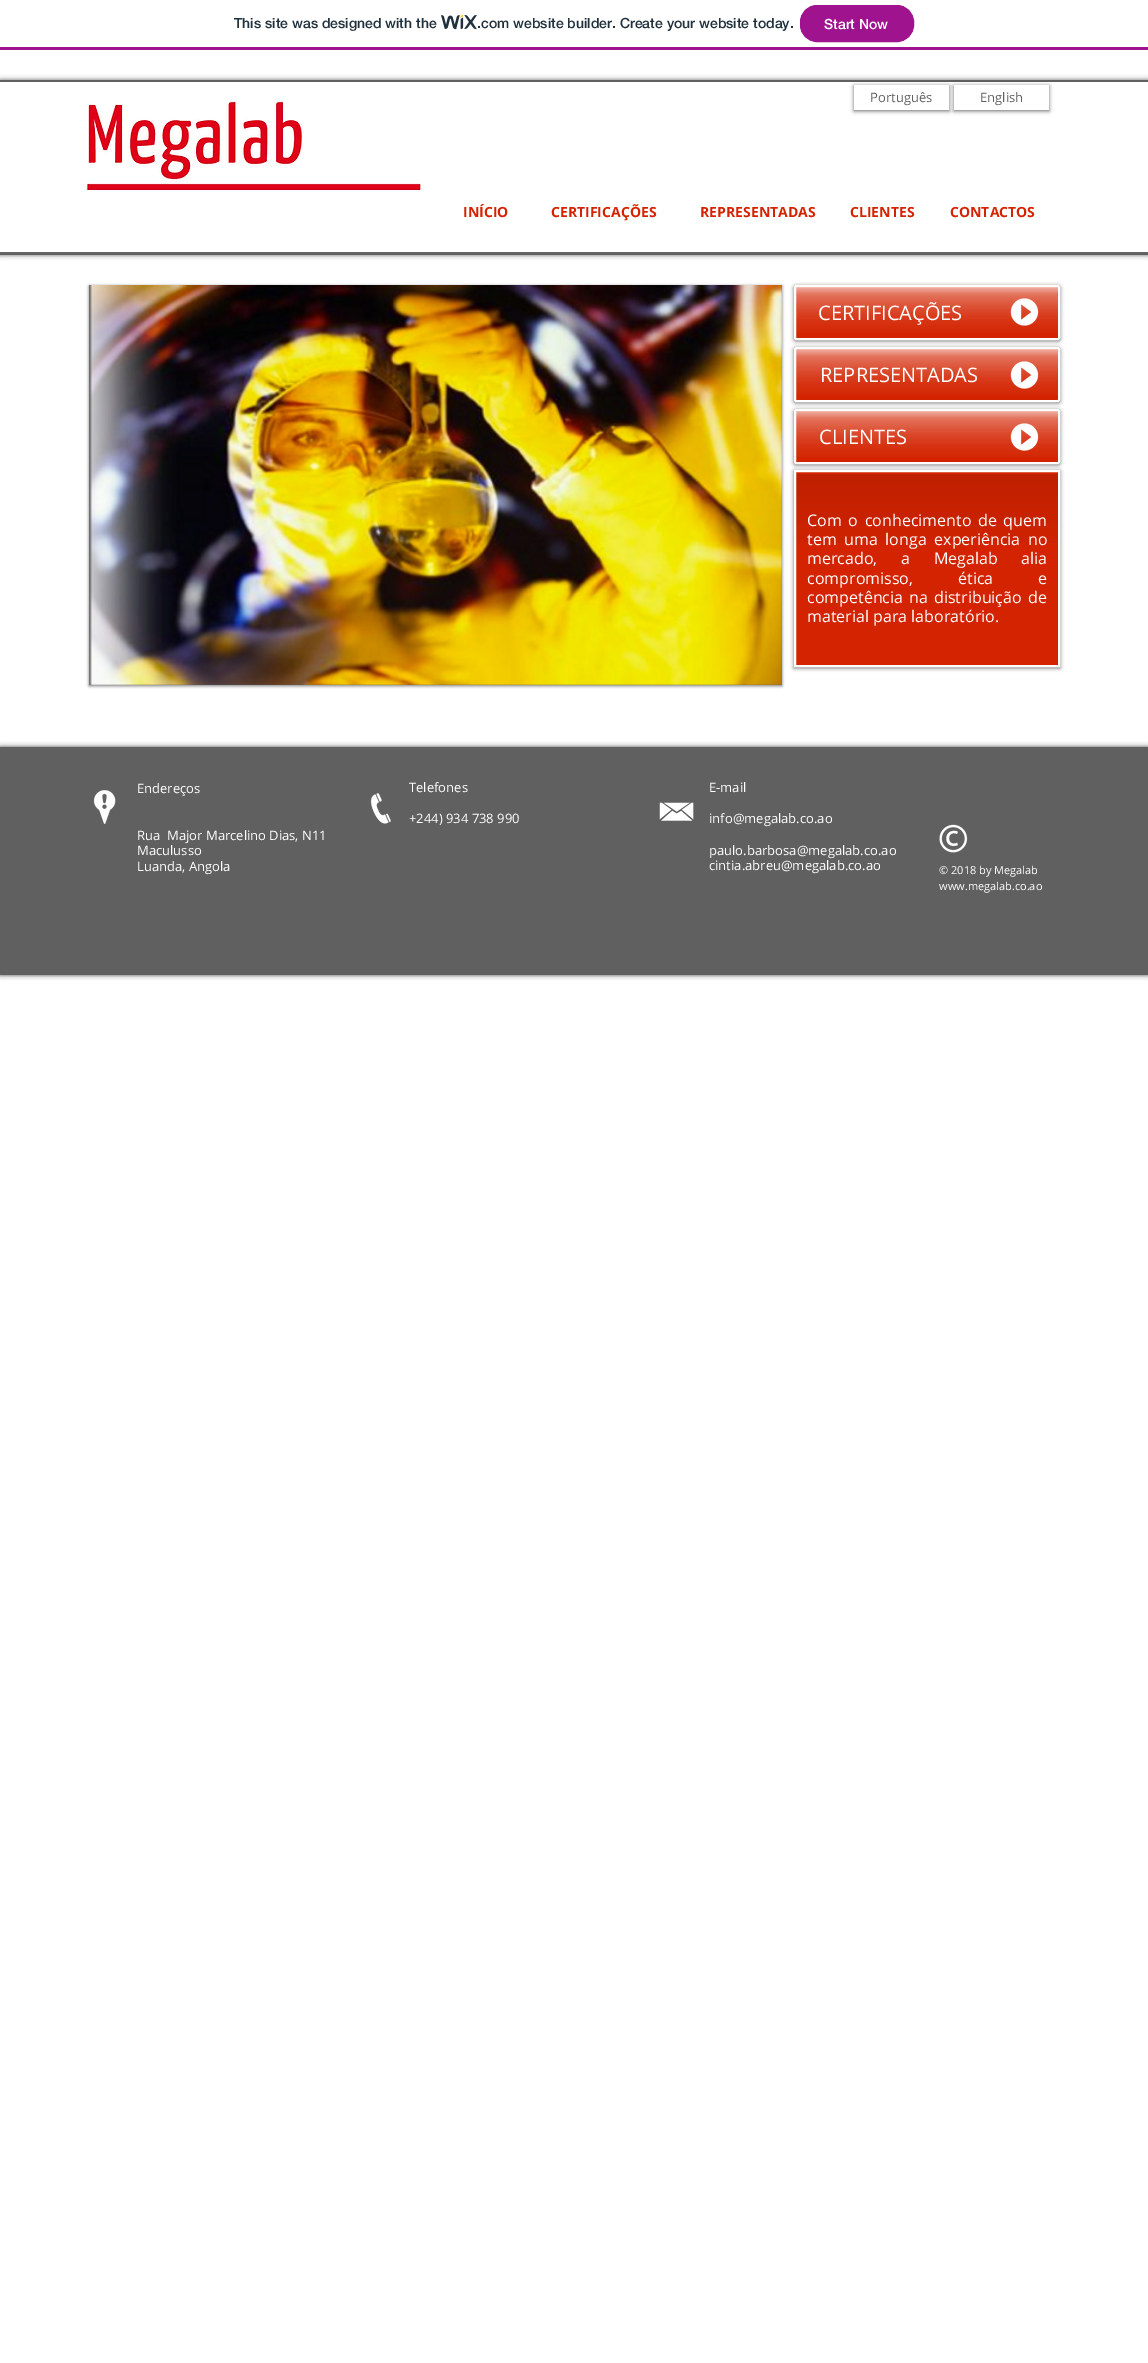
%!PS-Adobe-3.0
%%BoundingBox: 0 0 1148 2363
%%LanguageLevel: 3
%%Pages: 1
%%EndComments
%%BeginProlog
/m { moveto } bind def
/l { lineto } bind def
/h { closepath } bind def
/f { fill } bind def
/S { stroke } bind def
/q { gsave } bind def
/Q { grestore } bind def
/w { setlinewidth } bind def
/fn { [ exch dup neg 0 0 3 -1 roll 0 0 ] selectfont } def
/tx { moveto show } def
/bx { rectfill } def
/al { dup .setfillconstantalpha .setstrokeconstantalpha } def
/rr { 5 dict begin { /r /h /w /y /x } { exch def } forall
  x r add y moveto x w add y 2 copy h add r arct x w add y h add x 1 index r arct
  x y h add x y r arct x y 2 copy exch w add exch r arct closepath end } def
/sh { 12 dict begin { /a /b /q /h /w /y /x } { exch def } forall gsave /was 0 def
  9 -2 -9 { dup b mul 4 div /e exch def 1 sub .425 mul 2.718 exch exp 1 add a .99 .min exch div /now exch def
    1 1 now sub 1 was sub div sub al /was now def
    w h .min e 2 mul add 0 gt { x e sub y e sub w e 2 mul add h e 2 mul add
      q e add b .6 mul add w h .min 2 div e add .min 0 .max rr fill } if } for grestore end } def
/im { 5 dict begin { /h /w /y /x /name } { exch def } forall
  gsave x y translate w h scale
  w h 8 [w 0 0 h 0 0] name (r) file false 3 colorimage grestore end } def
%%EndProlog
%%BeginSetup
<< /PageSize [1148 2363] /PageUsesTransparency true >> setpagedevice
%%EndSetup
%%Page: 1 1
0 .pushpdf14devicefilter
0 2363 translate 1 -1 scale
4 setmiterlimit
1 setgray
0 0 1148 2363 bx
0.627 0.075 0.557 setrgbcolor
0 47 1148 3 bx
/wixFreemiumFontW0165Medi-Medium 14 fn
0.125 0.188 0.235 setrgbcolor
(This site was designed with the) 234 28 tx
(image0.raw) 441 15 36 15 im
(.com website builder. Create your website today.) 477 28 tx
0.627 0.075 0.557 setrgbcolor
800.5 5.5 113 36 16.5 rr q f Q
S
1 setgray
(Start Now) 824 29 tx
q
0 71 m 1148 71 l 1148 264 l 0 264 l h 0 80 m 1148 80 l 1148 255 l 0 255 l h eoclip newpath
0 setgray
0 80 1148 175 0 2.5 0.6 sh
Q
0.4 setgray
0 252 1148 1 bx
0.376 setgray
0 80 1148 2 bx
0 253 1148 2 bx
q
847 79 m 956 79 l 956 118 l 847 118 l h 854 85 m 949 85 l 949 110 l 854 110 l h eoclip newpath
0 setgray
854 86 95 25 0 2 0.6 sh
Q
/OpenSans-Regular 13 fn
(Português) 870 102 tx
q
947 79 m 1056 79 l 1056 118 l 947 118 l h 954 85 m 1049 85 l 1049 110 l 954 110 l h eoclip newpath
0 setgray
954 86 95 25 0 2 0.6 sh
Q
(English) 980 102 tx
(image1.raw) 87 101 336 89 im
/OpenSans-Bold 14 fn
0.827 0.137 0 setrgbcolor
(INÍCIO) 463 217 tx
(CERTIFICAÇÕES) 551 217 tx
(REPRESENTADAS) 700 217 tx
(CLIENTES) 850 217 tx
(CONTACTOS) 950 217 tx
0 setgray
89 286 693 400 0 1.5 0.5 sh
0.376 setgray
89 285 693 400 bx
(image2.raw) 89 285 693 400 im
0 setgray
794 286 266 55 2 2 0.6 sh
0.827 0.137 0 setrgbcolor
794 285 266 55 2 rr f
(image3.raw) 796 287 262 46 im
1 setgray
2 w
795 286 264 53 1 rr S
/OpenSans-Regular 20 fn
(CERTIFICAÇÕES) 818 320 tx
(image4.raw) 1010 298 29 28 im
0 setgray
794 348 266 55 2 2 0.6 sh
0.827 0.137 0 setrgbcolor
794 347 266 55 2 rr f
(image3.raw) 796 349 262 46 im
1 setgray
795 348 264 53 1 rr S
(REPRESENTADAS) 820 382 tx
(image5.raw) 1010 361 29 28 im
0 setgray
794 410 266 55 2 2 0.6 sh
0.827 0.137 0 setrgbcolor
794 409 266 55 2 rr f
(image3.raw) 796 411 262 46 im
1 setgray
795 410 264 53 1 rr S
(CLIENTES) 819 444 tx
(image5.raw) 1010 423 29 28 im
0 setgray
794 471 266 197 0 2 0.6 sh
0.827 0.137 0 setrgbcolor
796 472 262 193 bx
(image6.raw) 796 474 262 69 im
1 setgray
795 471 264 195 rectstroke
/OpenSans-Regular 16 fn
807 526 m 2.5 0 32 (Com o conhecimento de quem) widthshow
807 545 m 3.5 0 32 (tem uma longa experiência no) widthshow
807 564 m 19.5 0 32 (mercado, a Megalab alia) widthshow
807 584 m 41 0 32 (compromisso, ética e) widthshow
807 603 m 2 0 32 (competência na distribuição de) widthshow
(material para laboratório.) 807 622 tx
0 setgray
0 747 1148 228 0 2.5 0.7 sh
0.376 setgray
0 747 1148 228 bx
(image7.raw) 93 790 23 34 im
/OpenSans-Regular 13 fn
1 setgray
(Endereços) 137 793 tx
(Rua  Major Marcelino Dias, N11) 137 840 tx
(Maculusso) 137 855 tx
(Luanda, Angola) 137 871 tx
(image8.raw) 370 793 21 31 im
(Telefones) 409 792 tx
(+244\) 934 738 990) 409 823 tx
(image9.raw) 659 802 35 19 im
(E-mail) 709 792 tx
(info@megalab.co.ao) 709 823 tx
(paulo.barbosa@megalab.co.ao) 709 855 tx
(cintia.abreu@megalab.co.ao) 709 870 tx
(image10.raw) 939 824 29 29 im
/OpenSans-Regular 11 fn
(© 2018 by Megalab) 939 874 tx
(www.megalab.co.ao) 939 890 tx
.poppdf14devicefilter showpage
%%EOF
